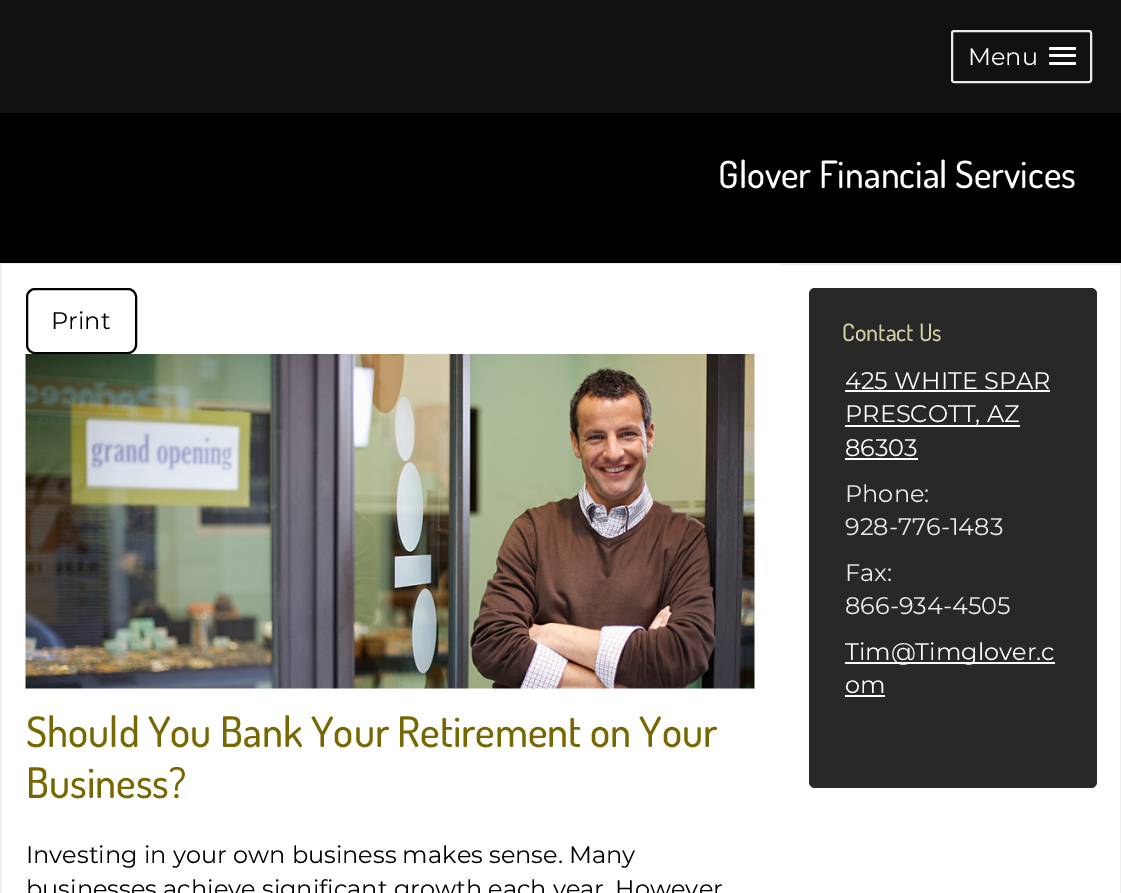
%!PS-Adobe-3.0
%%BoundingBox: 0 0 1121 893
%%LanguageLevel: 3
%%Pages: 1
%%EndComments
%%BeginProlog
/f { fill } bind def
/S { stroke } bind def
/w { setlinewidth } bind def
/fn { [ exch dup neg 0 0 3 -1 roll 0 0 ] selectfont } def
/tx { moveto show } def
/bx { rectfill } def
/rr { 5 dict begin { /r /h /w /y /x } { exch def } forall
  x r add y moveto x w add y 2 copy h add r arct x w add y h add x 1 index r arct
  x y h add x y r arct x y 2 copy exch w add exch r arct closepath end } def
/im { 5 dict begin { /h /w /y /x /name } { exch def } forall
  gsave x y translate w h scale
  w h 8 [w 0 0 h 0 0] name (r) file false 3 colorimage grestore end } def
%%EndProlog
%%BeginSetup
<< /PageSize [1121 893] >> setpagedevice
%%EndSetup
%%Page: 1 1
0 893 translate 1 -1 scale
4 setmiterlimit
0.067 setgray
0 0 1121 893 bx
0.925 setgray
2 w
952 31 139 51 2 rr S
/Montserrat-Regular 24 fn
1 setgray
(Menu) 968 65 tx
1049 47 27 3 1.5 rr f
1049 54 27 3 1.5 rr f
1049 62 27 3 1.5 rr f
0 setgray
0 113 1121 150 bx
/Dosis-Medium 37.5 fn
1 setgray
(Glover Financial Services) 718 188 tx
779 265 341 628 bx
0.933 setgray
1 264 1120 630 rectstroke
1 setgray
2 264 777 629 bx
0 setgray
27 289 109 64 8 rr S
/Montserrat-Regular 24 fn
(Print) 51 329 tx
(image0.raw) 25 354 730 335 im
/Dosis-Medium 42 fn
0.467 0.404 0 setrgbcolor
(Should You Bank Your Retirement on Your) 26 747 tx
(Business?) 26 798 tx
/Montserrat-Regular 24 fn
0 setgray
(Investing in your own business makes sense. Many) 26 863 tx
(businesses achieve significant growth each year. However) 26 897 tx
0.157 setgray
809 288 288 500 6 rr f
/Dosis-Medium 24 fn
0.831 0.816 0.643 setrgbcolor
(Contact Us) 842 341 tx
/Montserrat-Regular 24 fn
1 setgray
(425 WHITE SPAR) 845 389 tx
845 390 205 2 bx
845 425 175 2 bx
(PRESCOTT, AZ) 845 422 tx
(86303) 845 456 tx
845 458 73 2 bx
0.925 setgray
(Phone:) 845 502 tx
(928-776-1483) 845 535 tx
(Fax:) 845 581 tx
(866-934-4505) 845 614 tx
1 setgray
845 662 210 2 bx
(Tim@Timglover.c) 845 660 tx
(om) 845 693 tx
845 695 40 2 bx
showpage
%%EOF
